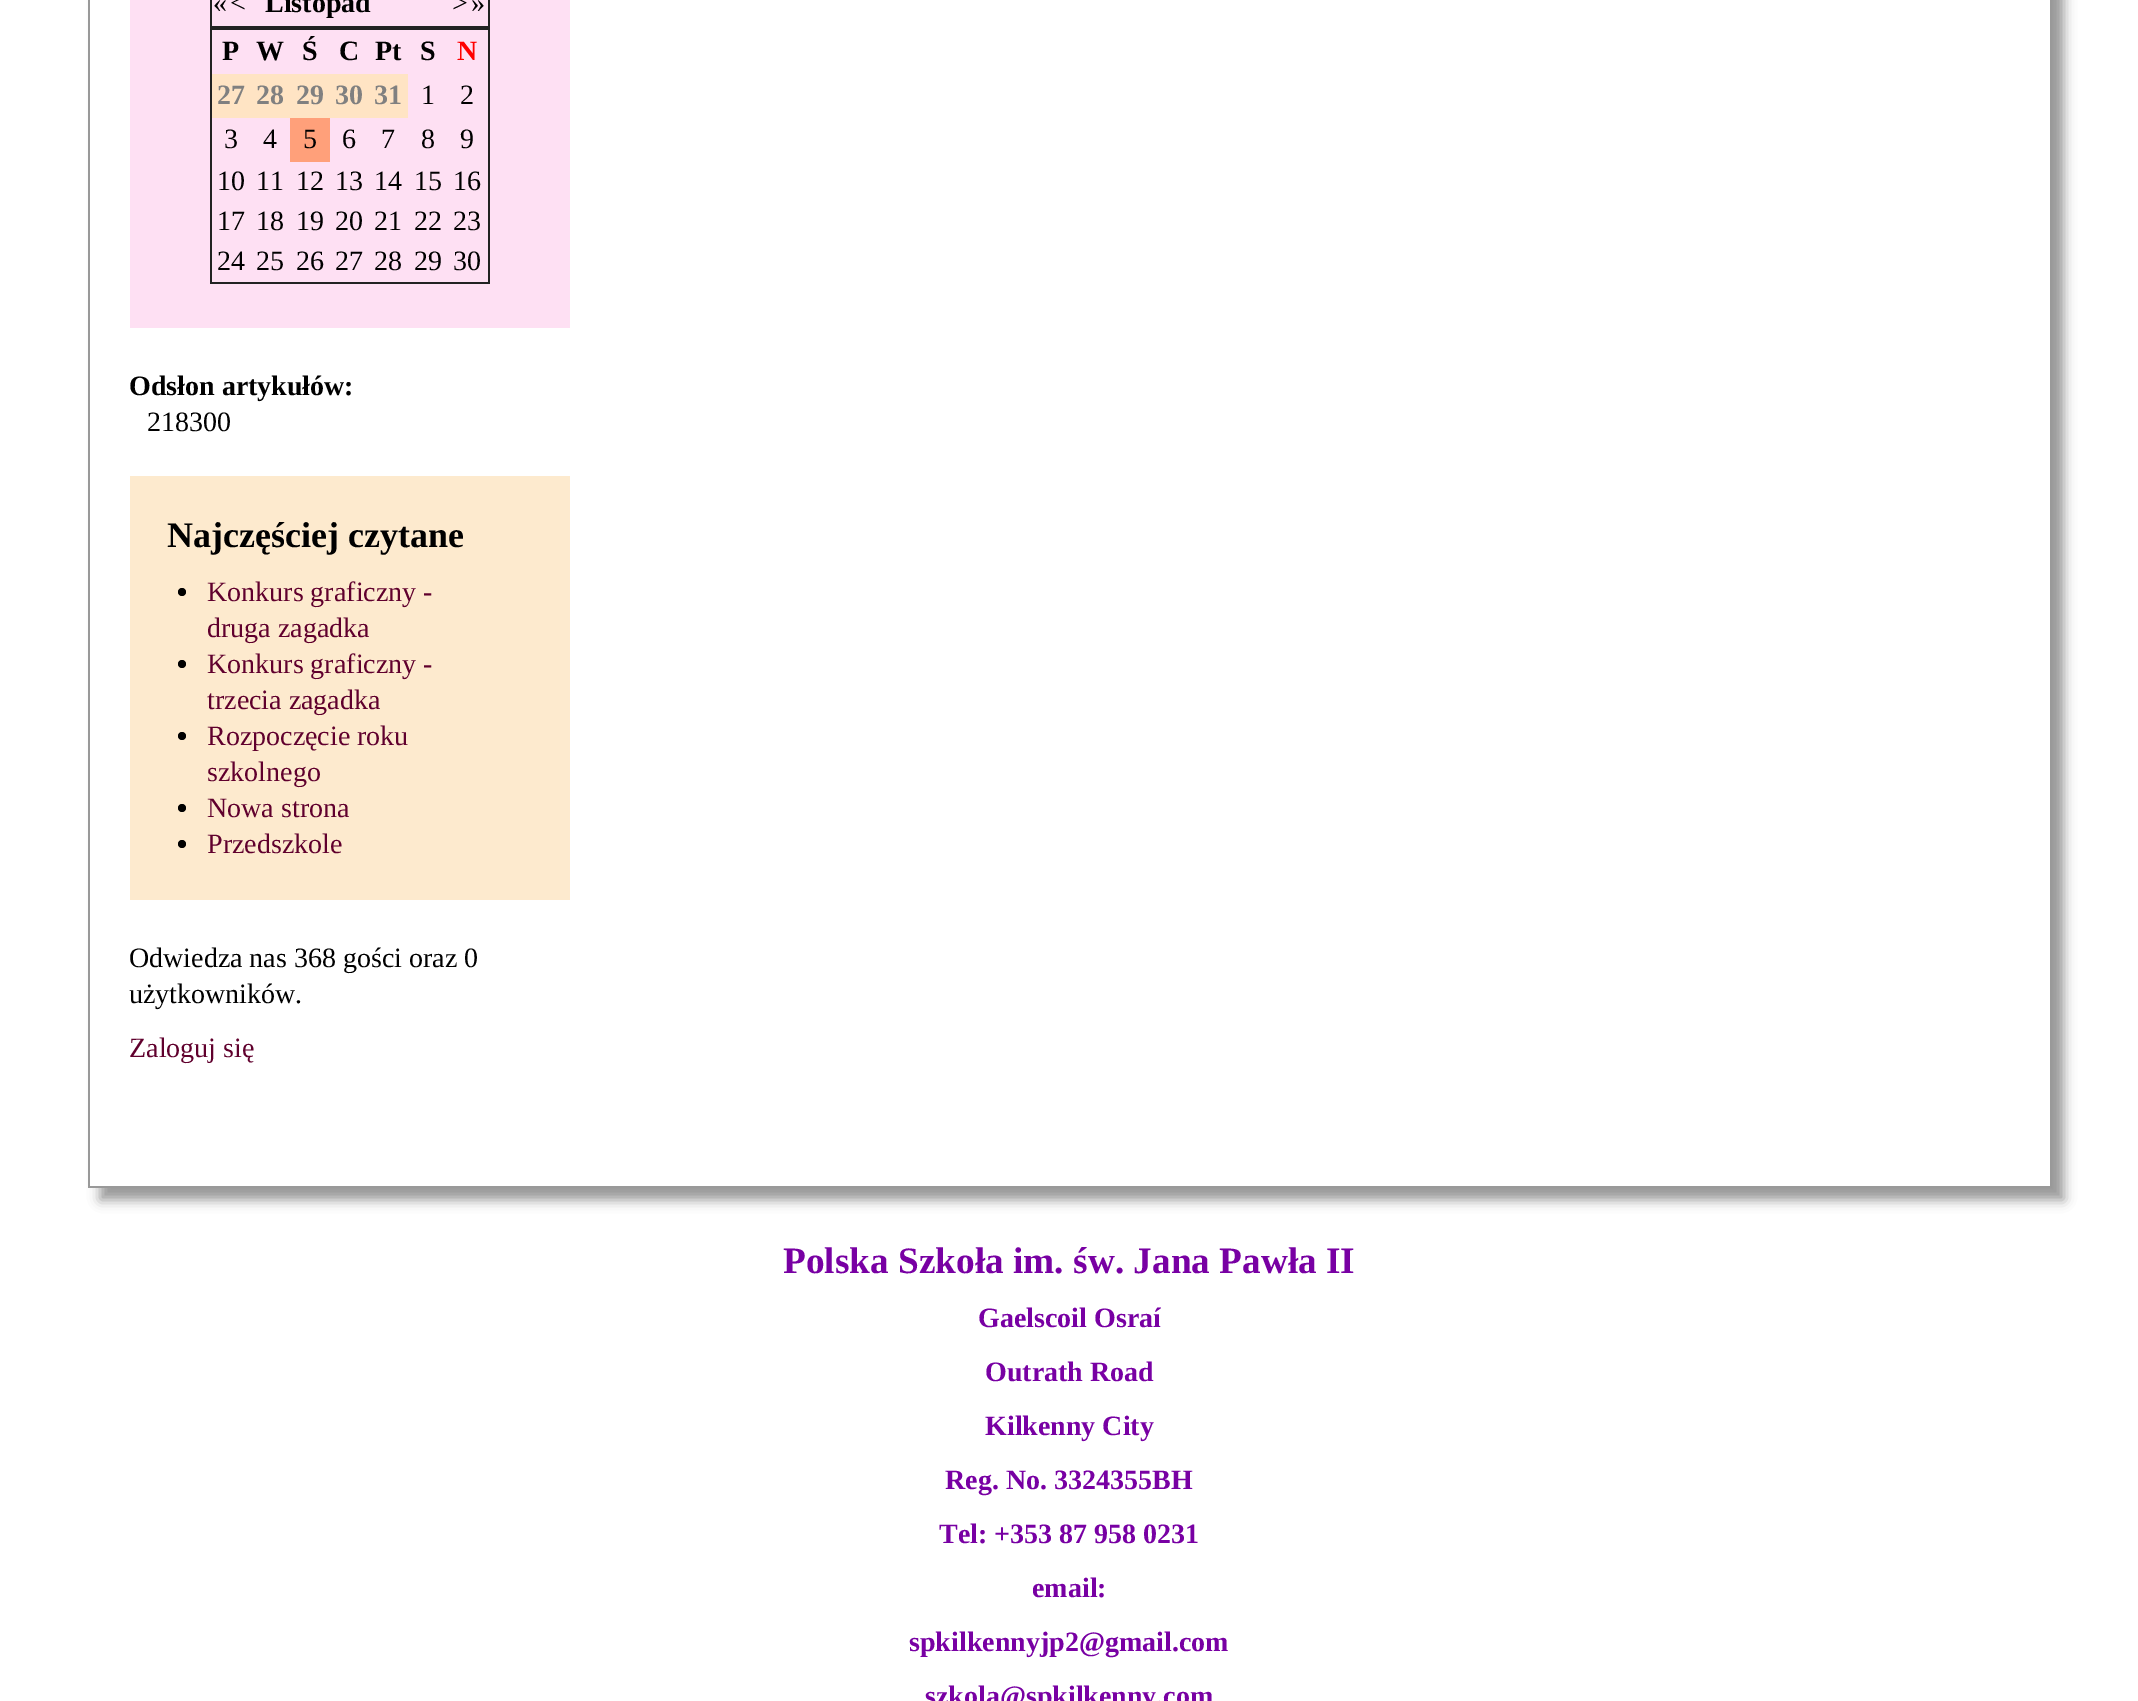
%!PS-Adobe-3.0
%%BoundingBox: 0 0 2138 1701
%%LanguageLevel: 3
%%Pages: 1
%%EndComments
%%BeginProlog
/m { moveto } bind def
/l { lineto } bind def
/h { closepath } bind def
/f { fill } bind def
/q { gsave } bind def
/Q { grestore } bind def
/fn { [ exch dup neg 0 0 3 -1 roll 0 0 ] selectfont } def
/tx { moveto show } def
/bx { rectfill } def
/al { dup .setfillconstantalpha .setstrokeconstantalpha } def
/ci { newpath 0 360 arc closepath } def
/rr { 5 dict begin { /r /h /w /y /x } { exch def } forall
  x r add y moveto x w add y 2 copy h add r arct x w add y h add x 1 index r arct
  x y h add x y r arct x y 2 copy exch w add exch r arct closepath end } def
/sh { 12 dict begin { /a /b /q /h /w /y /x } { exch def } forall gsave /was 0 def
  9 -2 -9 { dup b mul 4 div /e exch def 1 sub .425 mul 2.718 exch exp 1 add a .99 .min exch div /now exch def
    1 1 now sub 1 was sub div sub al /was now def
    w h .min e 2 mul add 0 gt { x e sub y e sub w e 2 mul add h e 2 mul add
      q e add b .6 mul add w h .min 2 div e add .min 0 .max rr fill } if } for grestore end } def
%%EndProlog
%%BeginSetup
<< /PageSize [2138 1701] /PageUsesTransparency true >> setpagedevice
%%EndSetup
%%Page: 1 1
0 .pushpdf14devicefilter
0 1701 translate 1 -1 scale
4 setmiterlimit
1 setgray
0 0 2138 1701 bx
q
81 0 m 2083 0 l 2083 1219 l 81 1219 l h 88 -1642 m 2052 -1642 l 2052 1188 l 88 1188 l h eoclip newpath
0 setgray
100 -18 1964 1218 0 6 0.4 sh
Q
0.6 setgray
2050 0 2 1188 bx
88 1186 1964 2 bx
88 0 2 1188 bx
0.996 0.878 0.953 setrgbcolor
130 0 440 328 bx
0.133 setgray
488 0 2 28 bx
210 26 280 4 bx
210 0 2 28 bx
/LiberationSerif-Regular 28 fn
0 setgray
(«) 213 12 tx
(<) 230 12 tx
/LiberationSerif-Bold 28 fn
(Listopad) 265 12 tx
/LiberationSerif-Regular 28 fn
(>) 452 12 tx
(») 471 12 tx
0.133 setgray
488 28 2 256 bx
210 282 280 2 bx
210 28 2 256 bx
/LiberationSerif-Bold 28 fn
0 setgray
(P) 222 60 tx
(W) 256 60 tx
(Ś) 302 60 tx
(C) 339 60 tx
(Pt) 375 60 tx
(S) 420 60 tx
1 0 0 setrgbcolor
(N) 457 60 tx
1 0.894 0.769 setrgbcolor
212 74 196 44 bx
0.502 setgray
(27) 217 104 tx
(28) 256 104 tx
(29) 296 104 tx
(30) 335 104 tx
(31) 374 104 tx
/LiberationSerif-Regular 28 fn
0 setgray
(1) 421 104 tx
(2) 460 104 tx
(3) 224 148 tx
(4) 263 148 tx
1 0.627 0.478 setrgbcolor
290 118 40 44 bx
0 setgray
(5) 303 148 tx
(6) 342 148 tx
(7) 381 148 tx
(8) 421 148 tx
(9) 460 148 tx
(10) 217 190 tx
(11) 256 190 tx
(12) 296 190 tx
(13) 335 190 tx
(14) 374 190 tx
(15) 414 190 tx
(16) 453 190 tx
(17) 217 230 tx
(18) 256 230 tx
(19) 296 230 tx
(20) 335 230 tx
(21) 374 230 tx
(22) 414 230 tx
(23) 453 230 tx
(24) 217 270 tx
(25) 256 270 tx
(26) 296 270 tx
(27) 335 270 tx
(28) 374 270 tx
(29) 414 270 tx
(30) 453 270 tx
/LiberationSerif-Bold 28 fn
(Odsłon artykułów:) 129 395 tx
/LiberationSerif-Regular 28 fn
(218300) 147 431 tx
0.992 0.918 0.808 setrgbcolor
130 476 440 424 bx
/LiberationSerif-Bold 36 fn
0 setgray
(Najczęściej czytane) 167 547 tx
182 592 4 ci f
/LiberationSerif-Regular 28 fn
0.376 0 0.176 setrgbcolor
(Konkurs graficzny -) 207 601 tx
(druga zagadka) 207 637 tx
0 setgray
182 664 4 ci f
0.376 0 0.176 setrgbcolor
(Konkurs graficzny -) 207 673 tx
(trzecia zagadka) 207 709 tx
0 setgray
182 736 4 ci f
0.376 0 0.176 setrgbcolor
(Rozpoczęcie roku) 207 745 tx
(szkolnego) 207 781 tx
0 setgray
182 808 4 ci f
0.376 0 0.176 setrgbcolor
(Nowa strona) 207 817 tx
0 setgray
182 844 4 ci f
0.376 0 0.176 setrgbcolor
(Przedszkole) 207 853 tx
0 setgray
(Odwiedza nas 368 gości oraz 0) 129 967 tx
(użytkowników.) 129 1003 tx
0.376 0 0.176 setrgbcolor
(Zaloguj się) 129 1057 tx
/LiberationSerif-Bold 37.3 fn
0.471 0 0.639 setrgbcolor
(Polska Szkoła im. św. Jana Pawła II) 783 1273 tx
/LiberationSerif-Bold 28 fn
(Gaelscoil Osraí) 978 1327 tx
(Outrath Road) 985 1381 tx
(Kilkenny City) 985 1435 tx
(Reg. No. 3324355BH) 945 1489 tx
(Tel: +353 87 958 0231) 939 1543 tx
(email:) 1032 1597 tx
(spkilkennyjp2@gmail.com) 909 1651 tx
(szkola@spkilkenny.com) 925 1705 tx
.poppdf14devicefilter showpage
%%EOF
